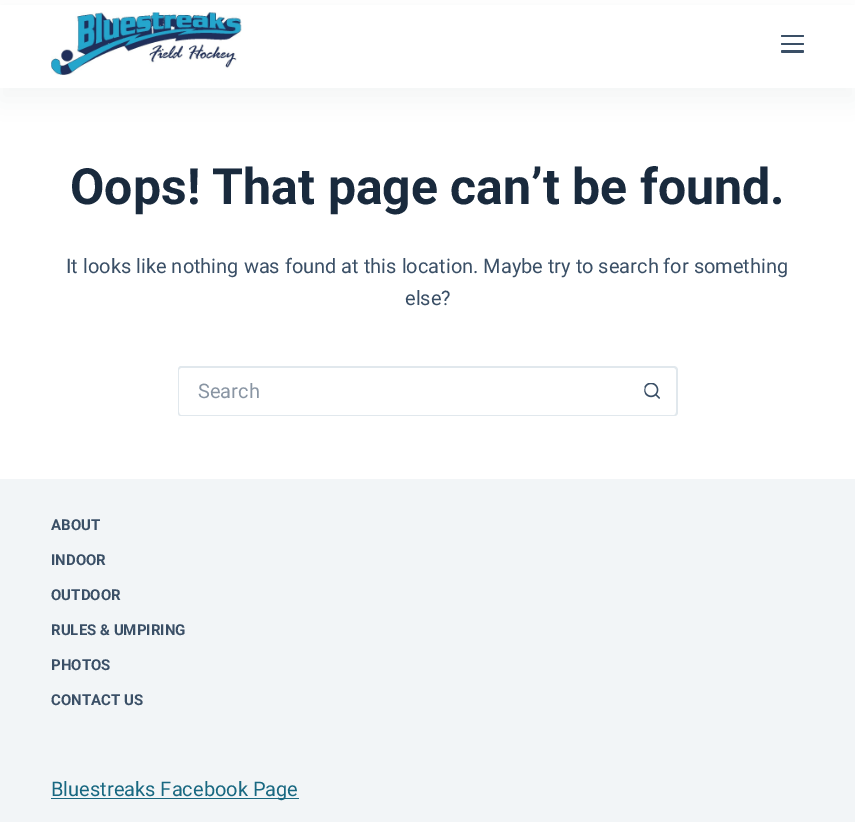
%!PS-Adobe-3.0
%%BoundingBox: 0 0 855 822
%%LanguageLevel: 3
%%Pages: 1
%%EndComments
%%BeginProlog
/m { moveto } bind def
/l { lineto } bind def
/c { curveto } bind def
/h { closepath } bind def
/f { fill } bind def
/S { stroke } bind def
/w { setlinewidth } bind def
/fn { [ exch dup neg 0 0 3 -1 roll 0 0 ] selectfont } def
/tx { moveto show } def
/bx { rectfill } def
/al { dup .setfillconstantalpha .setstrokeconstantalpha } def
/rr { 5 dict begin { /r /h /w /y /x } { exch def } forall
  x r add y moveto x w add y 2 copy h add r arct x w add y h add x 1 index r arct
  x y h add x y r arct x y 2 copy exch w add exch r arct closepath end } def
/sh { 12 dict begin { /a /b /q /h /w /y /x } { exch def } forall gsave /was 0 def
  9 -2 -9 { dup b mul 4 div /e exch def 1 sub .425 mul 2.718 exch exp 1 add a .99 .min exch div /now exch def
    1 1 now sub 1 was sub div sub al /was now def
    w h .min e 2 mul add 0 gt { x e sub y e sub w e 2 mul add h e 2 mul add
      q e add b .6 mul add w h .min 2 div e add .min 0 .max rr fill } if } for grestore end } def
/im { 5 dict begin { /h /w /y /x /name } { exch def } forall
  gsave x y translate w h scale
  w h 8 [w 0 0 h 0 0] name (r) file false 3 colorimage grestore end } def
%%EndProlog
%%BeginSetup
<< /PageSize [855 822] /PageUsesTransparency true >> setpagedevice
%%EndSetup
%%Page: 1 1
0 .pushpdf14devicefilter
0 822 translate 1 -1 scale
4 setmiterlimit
1 setgray
0 0 855 822 bx
0.173 0.243 0.314 setrgbcolor
0 13 855 87 0 12.5 0.05 sh
1 setgray
0 5 855 83 bx
(image0.raw) 51 12 191 63 im
0.227 0.31 0.4 setrgbcolor
781 35 23 2 1 rr f
781 43 23 2 1 rr f
781 50 23 3 1.5 rr f
/Roboto-Bold 50 fn
0.098 0.165 0.239 setrgbcolor
(Oops! That page can’t be found.) 70 204 tx
/Roboto-Regular 20 fn
0.227 0.31 0.4 setrgbcolor
(It looks like nothing was found at this location. Maybe try to search for something) 66 273 tx
(else?) 405 305 tx
0.882 0.91 0.929 setrgbcolor
181 366 m 628 366 l 628 416 l 181 416 l 179 416 178 415 178 412 c 178 370 l 178 368 179 366 181 366 c h 181 368 m 628 368 l 628 415 l 181 415 l 180 415 179 414 179 412 c 179 370 l 179 369 180 368 181 368 c h eofill
0.537 0.584 0.639 setrgbcolor
(Search) 198 398 tx
0.882 0.91 0.929 setrgbcolor
628 366 m 674 366 l 676 366 678 368 678 370 c 678 412 l 678 415 676 416 674 416 c 628 416 l h 628 368 m 674 368 l 675 368 676 369 676 370 c 676 412 l 676 414 675 415 674 415 c 628 415 l h eofill
(image1.raw) 644 383 16 16 im
1 setgray
1.9 w
1 setlinecap
649.5 400 m 644.5 398.5 642 393 643.5 388 c S
0.949 0.961 0.969 setrgbcolor
0 479 855 343 bx
/Roboto-Bold 15 fn
0.227 0.31 0.4 setrgbcolor
(ABOUT) 51 530 tx
(INDOOR) 51 565 tx
(OUTDOOR) 51 600 tx
(RULES & UMPIRING) 51 635 tx
(PHOTOS) 51 670 tx
(CONTACT US) 51 705 tx
0.098 0.408 0.506 setrgbcolor
51 798 248 1 bx
/Roboto-Regular 20 fn
(Bluestreaks Facebook Page) 51 796 tx
.poppdf14devicefilter showpage
%%EOF
